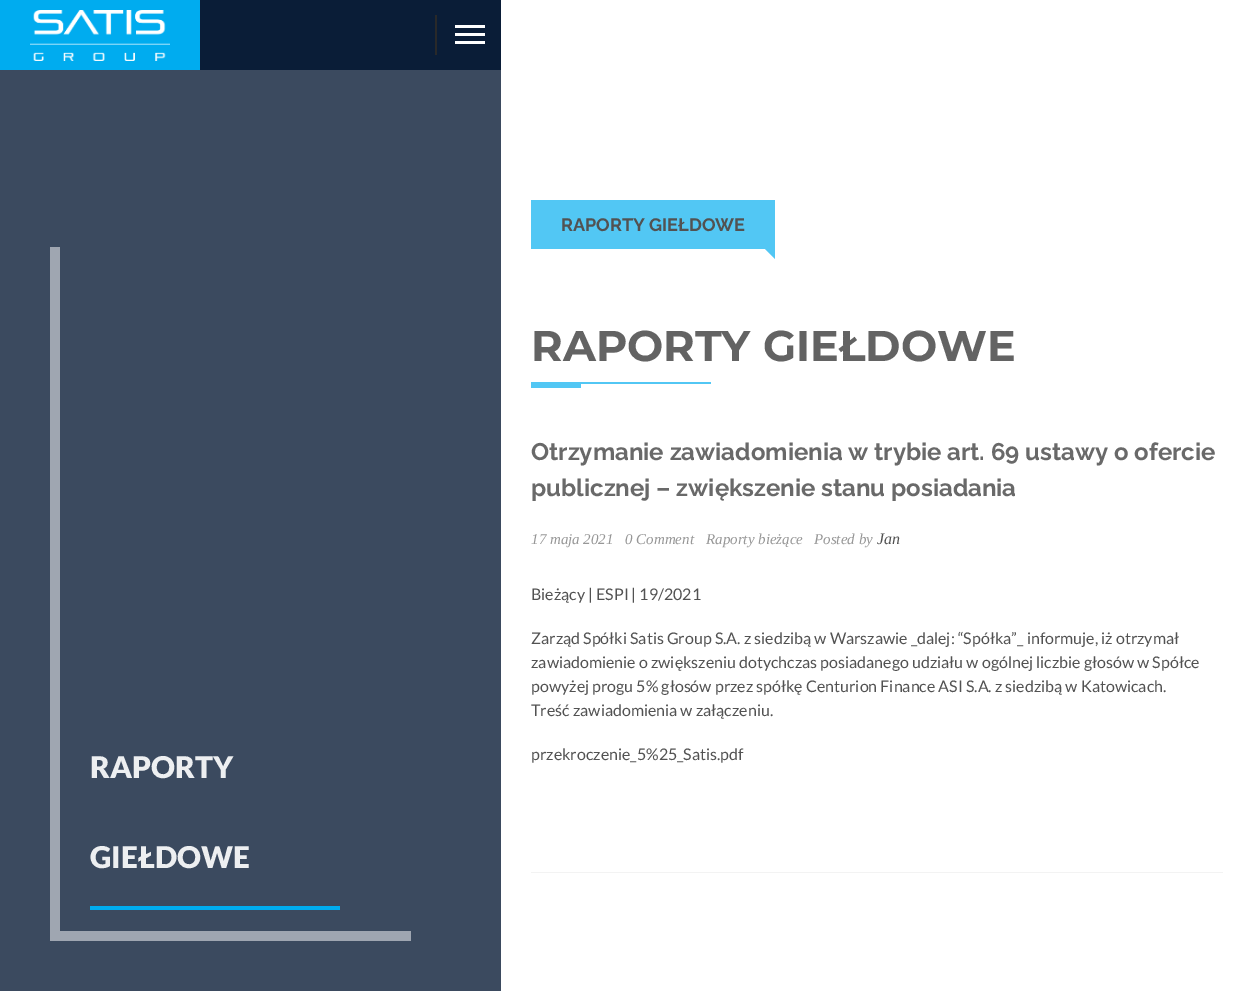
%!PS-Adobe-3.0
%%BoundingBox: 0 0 1253 991
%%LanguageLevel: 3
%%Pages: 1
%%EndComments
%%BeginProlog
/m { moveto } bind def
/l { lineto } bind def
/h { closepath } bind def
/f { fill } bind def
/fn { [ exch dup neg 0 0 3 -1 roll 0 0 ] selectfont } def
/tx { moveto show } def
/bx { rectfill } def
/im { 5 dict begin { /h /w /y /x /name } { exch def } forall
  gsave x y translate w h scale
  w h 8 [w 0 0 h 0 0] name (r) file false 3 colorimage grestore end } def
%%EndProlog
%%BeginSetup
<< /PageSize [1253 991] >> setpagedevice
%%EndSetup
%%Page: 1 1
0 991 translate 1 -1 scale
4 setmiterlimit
1 setgray
0 0 1253 991 bx
0.039 0.114 0.216 setrgbcolor
200 0 301 70 bx
0 0.675 0.937 setrgbcolor
0 0 200 70 bx
(image0.raw) 30 10 140 51 im
0.161 setgray
435 15 2 40 bx
1 setgray
455 25 30 3 bx
455 33 30 3 bx
455 41 30 3 bx
0.322 0.78 0.957 setrgbcolor
531 200 244 49 bx
/Raleway-Bold 18 fn
0.322 setgray
(RAPORTY GIEŁDOWE) 561 231 tx
0.322 0.78 0.957 setrgbcolor
775 249 m 775 259 l 765 249 l h f
/Montserrat-Bold 43 fn
0.388 setgray
(RAPORTY GIEŁDOWE) 531 361 tx
0.322 0.78 0.957 setrgbcolor
531 382 180 2 bx
531 384 50 4 bx
0.953 setgray
531 872 692 1 bx
/Raleway-Bold 24 fn
0.412 setgray
(Otrzymanie zawiadomienia w trybie art. 69 ustawy o ofercie) 531 460 tx
(publicznej – zwiększenie stanu posiadania) 531 496 tx
/LiberationSerif-Italic 15 fn
0.592 setgray
(17 maja 2021) 531 544 tx
(0 Comment) 625 544 tx
(Raporty bieżące) 706 544 tx
(Posted by) 814 544 tx
/LiberationSerif-Italic 16 fn
0.322 setgray
(Jan) 877 544 tx
/Lato-Regular 16 fn
(Bieżący | ESPI | 19/2021) 531 600 tx
(Zarząd Spółki Satis Group S.A. z siedzibą w Warszawie _dalej: “Spółka”_ informuje, iż otrzymał) 531 644 tx
(zawiadomienie o zwiększeniu dotychczas posiadanego udziału w ogólnej liczbie głosów w Spółce) 531 668 tx
(powyżej progu 5% głosów przez spółkę Centurion Finance ASI S.A. z siedzibą w Katowicach.) 531 692 tx
(Treść zawiadomienia w załączeniu.) 531 716 tx
(przekroczenie_5%25_Satis.pdf) 531 760 tx
0.231 0.29 0.373 setrgbcolor
0 70 501 921 bx
0.624 0.651 0.694 setrgbcolor
50 247 10 694 bx
/Lato-Black 30 fn
0.929 0.937 0.945 setrgbcolor
(RAPORTY) 90 778 tx
(GIEŁDOWE) 90 868 tx
0 0.675 0.937 setrgbcolor
90 906 250 4 bx
0.624 0.651 0.694 setrgbcolor
60 931 351 10 bx
showpage
%%EOF
